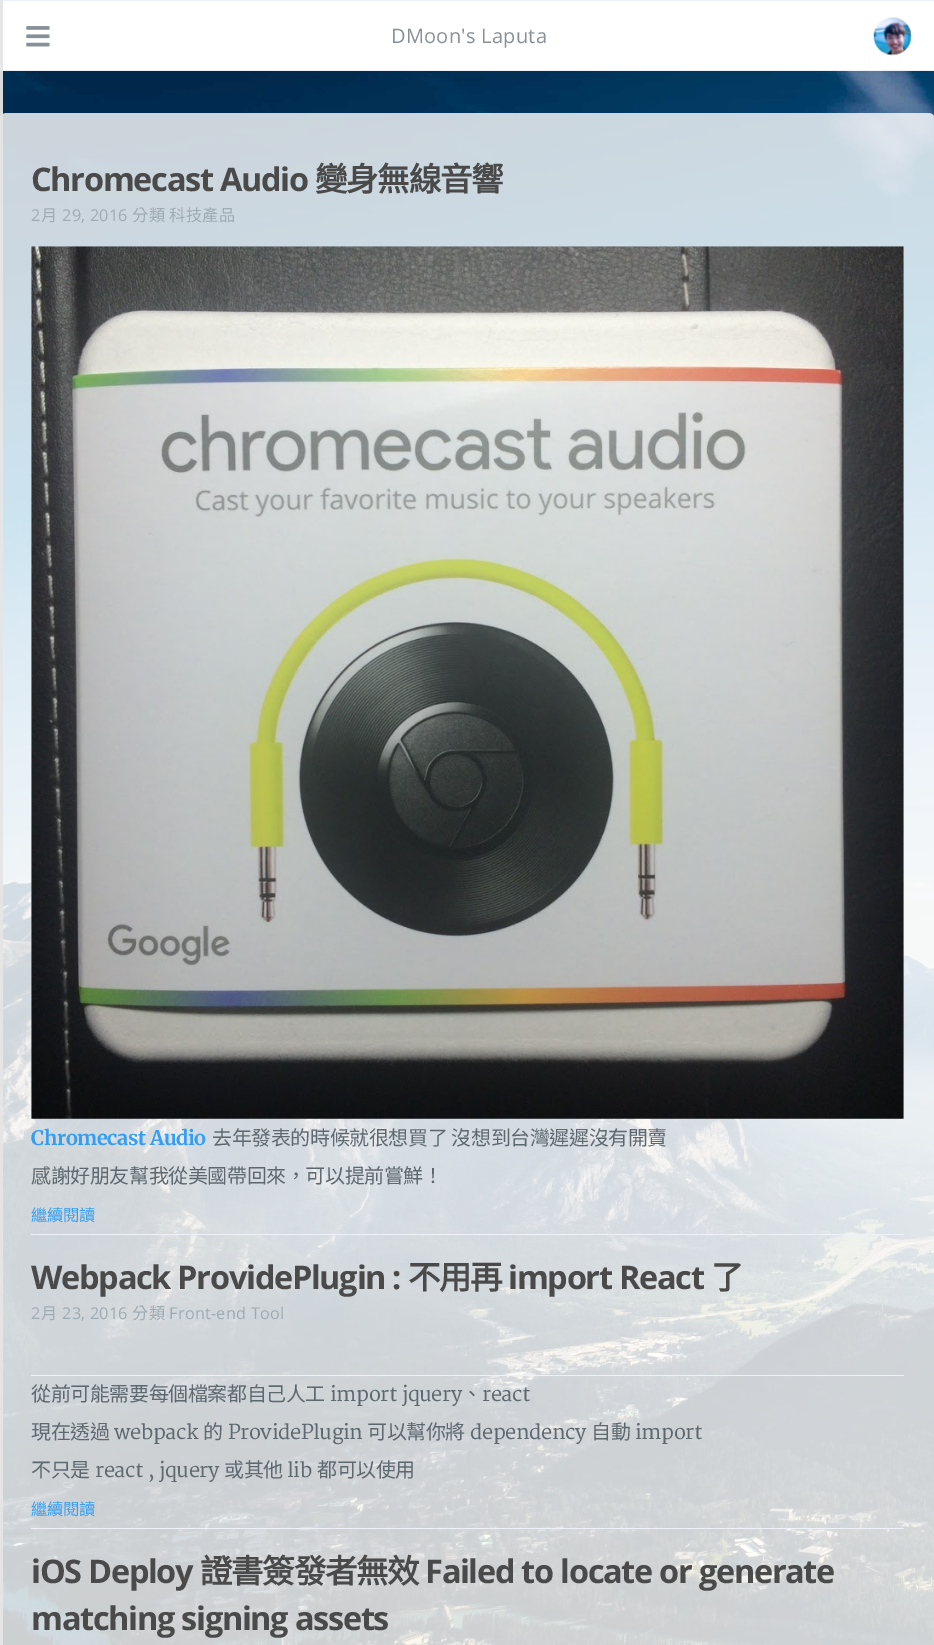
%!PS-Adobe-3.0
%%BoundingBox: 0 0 934 1645
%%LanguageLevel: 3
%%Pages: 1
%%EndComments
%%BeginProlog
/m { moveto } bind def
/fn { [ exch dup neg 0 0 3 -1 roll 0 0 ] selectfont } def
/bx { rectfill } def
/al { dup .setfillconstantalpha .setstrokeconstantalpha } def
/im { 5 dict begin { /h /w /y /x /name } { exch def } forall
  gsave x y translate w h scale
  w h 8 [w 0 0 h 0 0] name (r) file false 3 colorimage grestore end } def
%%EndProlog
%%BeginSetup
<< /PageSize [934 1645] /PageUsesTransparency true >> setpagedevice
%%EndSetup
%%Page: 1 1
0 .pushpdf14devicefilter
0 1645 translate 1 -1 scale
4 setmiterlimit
1 setgray
0 0 934 1645 bx
0.933 0.949 0.973 setrgbcolor
0.5 0.5 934 70 rectstroke
(image3.raw) 0 71 934 1574 im
0.65 al
0 setgray
0 0 3 1645 bx
0.85 al
1 setgray
0 0 3 1645 bx
1 al
(image0.raw) 26 26 24 21 im
/OpenSans-Regular 20 fn
0.533 0.565 0.604 setrgbcolor
391 43 m 0.25 0 (DMoon's Laputa) ashow
(image1.raw) 873 17 39 39 im
0.933 0.949 0.973 setrgbcolor
31 1234 873 1 bx
/OpenSans-Bold 32.5 fn
0.29 setgray
31 191 m -1.3 0 (Chromecast Audio) ashow
/NotoSansCJKTC-Bold 32.5 fn
315 191 m -1.3 0 (變身無線音響) ashow
/OpenSans-Regular 16.25 fn
0.62 0.671 0.702 setrgbcolor
31 221 m 0.25 0 (2) ashow
/NotoSansCJKTC-Regular 16.25 fn
41 221 m 0.25 0 (月) ashow
/OpenSans-Regular 16.25 fn
62 221 m 0.25 0 (29, 2016) ashow
/NotoSansCJKTC-Regular 16.25 fn
132 221 m 0.25 0 (分類) ashow
169 221 m 0.25 0 (科技產品) ashow
(image2.raw) 31 246 873 873 im
/Merriweather-Bold 20 fn
0.204 0.62 0.953 setrgbcolor
31 1145 m -0.4 0 (Chromecast Audio) ashow
/NotoSansCJKTC-Regular 20 fn
0.365 0.408 0.435 setrgbcolor
212 1145 m -0.4 0 (去年發表的時候就很想買了 沒想到台灣遲遲沒有開賣) ashow
31 1183 m -0.4 0 (感謝好朋友幫我從美國帶回來，可以提前嘗鮮！) ashow
/NotoSansCJKTC-Regular 16.25 fn
0.204 0.62 0.953 setrgbcolor
31 1221 m -0.4 0 (繼續閱讀) ashow
0.933 0.949 0.973 setrgbcolor
31 1528 873 1 bx
/OpenSans-Bold 32.5 fn
0.29 setgray
31 1289 m -1.3 0 (Webpack ProvidePlugin :) ashow
/NotoSansCJKTC-Bold 32.5 fn
408 1289 m -1.3 0 (不用再) ashow
/OpenSans-Bold 32.5 fn
508 1289 m -1.3 0 (import React) ashow
/NotoSansCJKTC-Bold 32.5 fn
711 1289 m -1.3 0 (了) ashow
/OpenSans-Regular 16.25 fn
0.62 0.671 0.702 setrgbcolor
31 1319 m 0.25 0 (2) ashow
/NotoSansCJKTC-Regular 16.25 fn
41 1319 m 0.25 0 (月) ashow
/OpenSans-Regular 16.25 fn
62 1319 m 0.25 0 (23, 2016) ashow
/NotoSansCJKTC-Regular 16.25 fn
132 1319 m 0.25 0 (分類) ashow
/OpenSans-Regular 16.25 fn
169 1319 m 0.25 0 (Front-end Tool) ashow
0.933 0.949 0.973 setrgbcolor
31 1375 873 1 bx
/NotoSansCJKTC-Regular 20 fn
0.365 0.408 0.435 setrgbcolor
31 1401 m -0.4 0 (從前可能需要每個檔案都自己人工) ashow
/Merriweather-Regular 20 fn
330 1401 m -0.4 0 (import jquery) ashow
/NotoSansCJKTC-Regular 20 fn
462 1401 m -0.4 0 (、) ashow
/Merriweather-Regular 20 fn
482 1401 m -0.4 0 (react) ashow
/NotoSansCJKTC-Regular 20 fn
31 1439 m -0.4 0 (現在透過) ashow
/Merriweather-Regular 20 fn
114 1439 m -0.4 0 (webpack) ashow
/NotoSansCJKTC-Regular 20 fn
203 1439 m -0.4 0 (的) ashow
/Merriweather-Regular 20 fn
228 1439 m -0.4 0 (ProvidePlugin) ashow
/NotoSansCJKTC-Regular 20 fn
367 1439 m -0.4 0 (可以幫你將) ashow
/Merriweather-Regular 20 fn
470 1439 m -0.4 0 (dependency) ashow
/NotoSansCJKTC-Regular 20 fn
591 1439 m -0.4 0 (自動) ashow
/Merriweather-Regular 20 fn
635 1439 m -0.4 0 (import) ashow
/NotoSansCJKTC-Regular 20 fn
31 1477 m -0.4 0 (不只是) ashow
/Merriweather-Regular 20 fn
95 1477 m -0.4 0 (react , jquery) ashow
/NotoSansCJKTC-Regular 20 fn
224 1477 m -0.4 0 (或其他) ashow
/Merriweather-Regular 20 fn
287 1477 m -0.4 0 (lib) ashow
/NotoSansCJKTC-Regular 20 fn
317 1477 m -0.4 0 (都可以使用) ashow
/NotoSansCJKTC-Regular 16.25 fn
0.204 0.62 0.953 setrgbcolor
31 1515 m -0.4 0 (繼續閱讀) ashow
/OpenSans-Bold 32.5 fn
0.29 setgray
31 1583 m -1.3 0 (iOS Deploy) ashow
/NotoSansCJKTC-Bold 32.5 fn
200 1583 m -1.3 0 (證書簽發者無效) ashow
/OpenSans-Bold 32.5 fn
425 1583 m -1.3 0 (Failed to locate or generate) ashow
31 1630 m -1.3 0 (matching signing assets) ashow
.poppdf14devicefilter showpage
%%EOF
